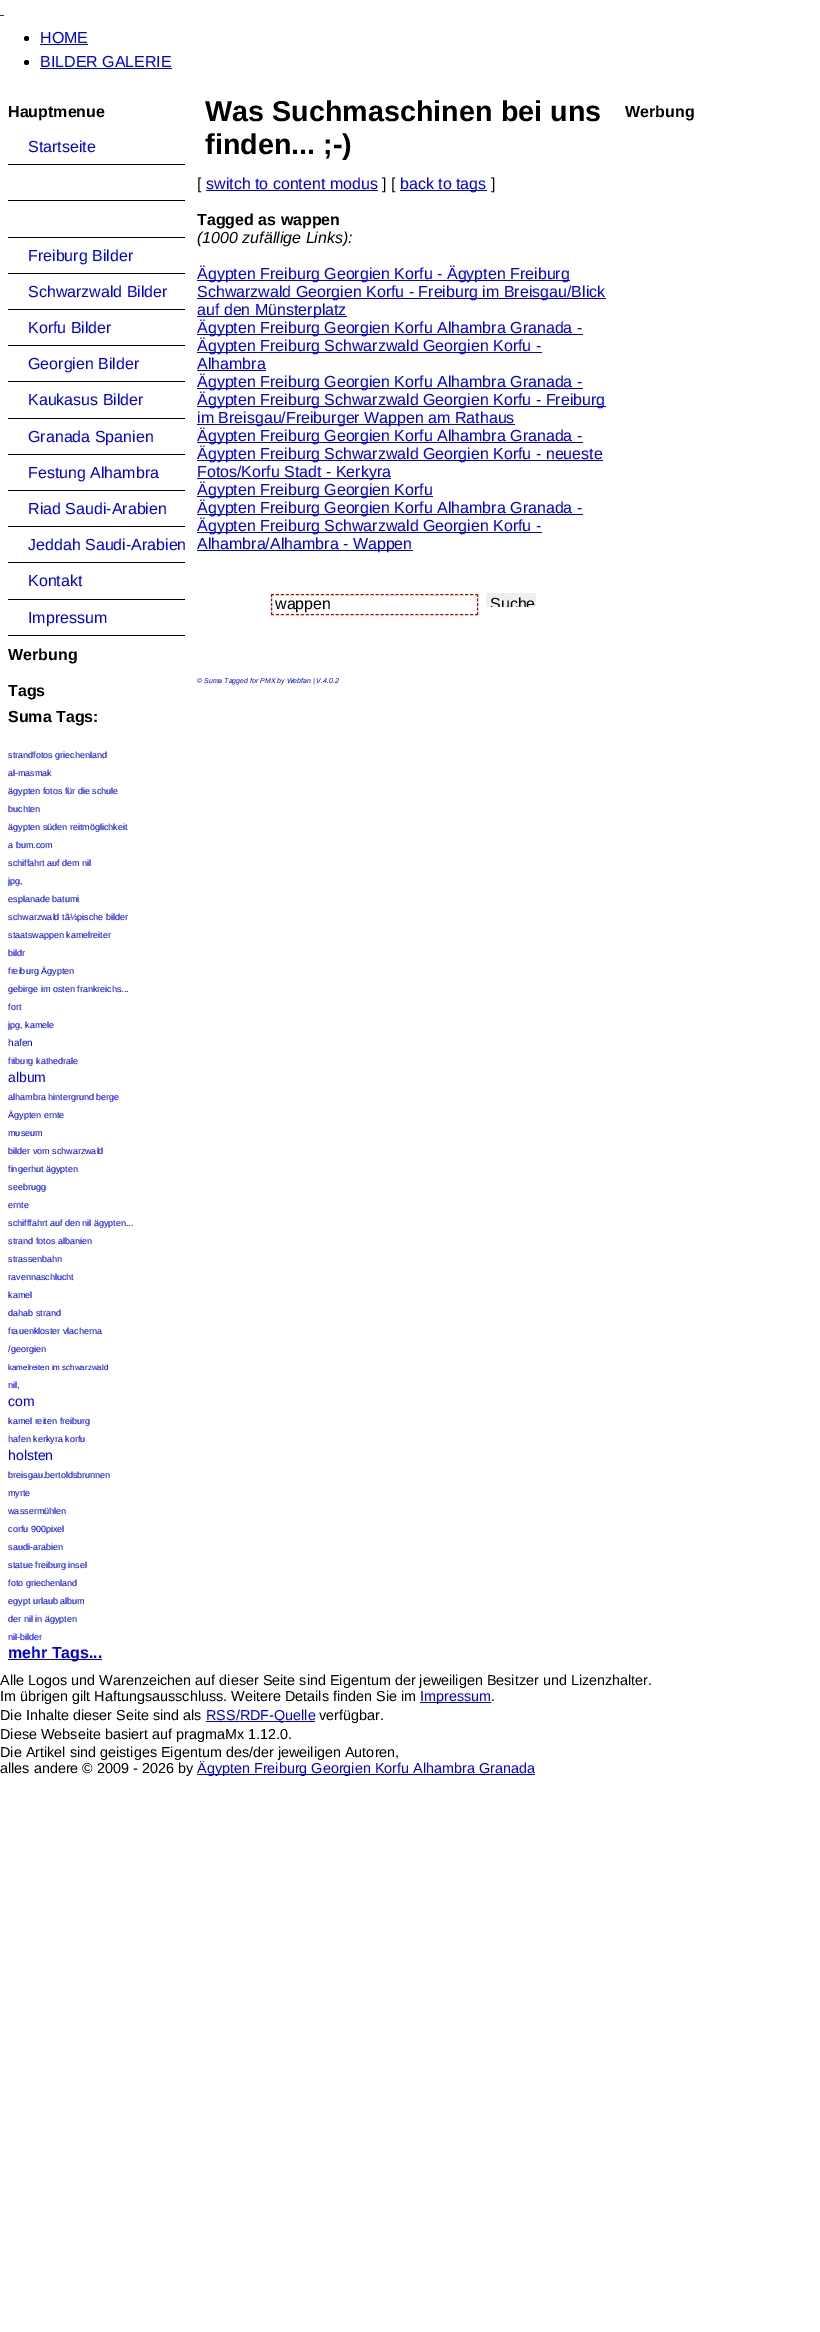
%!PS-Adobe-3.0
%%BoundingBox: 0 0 820 2332
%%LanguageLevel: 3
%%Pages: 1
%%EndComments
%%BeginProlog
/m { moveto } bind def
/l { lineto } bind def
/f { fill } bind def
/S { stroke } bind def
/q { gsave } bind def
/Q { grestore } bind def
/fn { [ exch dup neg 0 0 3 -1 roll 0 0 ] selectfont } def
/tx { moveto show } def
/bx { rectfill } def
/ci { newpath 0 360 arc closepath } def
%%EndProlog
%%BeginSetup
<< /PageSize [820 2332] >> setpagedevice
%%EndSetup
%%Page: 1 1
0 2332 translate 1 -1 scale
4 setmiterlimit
1 setgray
0 0 820 2332 bx
0.184 setgray
0 15 4 1 bx
0 setgray
26.5 38.5 2.5 ci f
/LiberationSans-Regular 16 fn
0 0 0.933 setrgbcolor
(HOME) 40 43 tx
40 44 48 1 bx
0 setgray
26.5 62.5 2.5 ci f
0 0 0.933 setrgbcolor
(BILDER GALERIE) 40 67 tx
40 68 132 1 bx
/LiberationSans-Bold 16 fn
0 setgray
(Hauptmenue) 8 117 tx
8 164 177 1 bx
/LiberationSans-Regular 16 fn
0 0 0.933 setrgbcolor
(Startseite) 28 152 tx
0 setgray
8 200 177 1 bx
8 237 177 1 bx
8 273 177 1 bx
0 0 0.933 setrgbcolor
(Freiburg Bilder) 28 261 tx
0 setgray
8 309 177 1 bx
0 0 0.933 setrgbcolor
(Schwarzwald Bilder) 28 297 tx
0 setgray
8 345 177 1 bx
0 0 0.933 setrgbcolor
(Korfu Bilder) 28 333 tx
0 setgray
8 381 177 1 bx
0 0 0.933 setrgbcolor
(Georgien Bilder) 28 369 tx
0 setgray
8 418 177 1 bx
0 0 0.933 setrgbcolor
(Kaukasus Bilder) 28 405 tx
0 setgray
8 454 177 1 bx
0 0 0.933 setrgbcolor
(Granada Spanien) 28 442 tx
0 setgray
8 490 177 1 bx
0 0 0.933 setrgbcolor
(Festung Alhambra) 28 478 tx
0 setgray
8 526 177 1 bx
0 0 0.933 setrgbcolor
(Riad Saudi-Arabien) 28 514 tx
0 setgray
8 562 177 1 bx
q
8 129 177 507 rectclip
0 0 0.933 setrgbcolor
(Jeddah Saudi-Arabien) 28 550 tx
Q
8 599 177 1 bx
0 0 0.933 setrgbcolor
(Kontakt) 28 586 tx
0 setgray
8 635 177 1 bx
0 0 0.933 setrgbcolor
(Impressum) 28 623 tx
/LiberationSans-Bold 16 fn
0 setgray
(Werbung) 8 660 tx
(Tags) 8 696 tx
(Suma Tags:) 8 722 tx
/LiberationSans-Regular 9 fn
0 0 0.933 setrgbcolor
(strandfotos griechenland) 8 758 tx
(al-masmak) 8 776 tx
(ägypten fotos für die schule) 8 794 tx
(buchten) 8 812 tx
(ägypten süden reitmöglichkeit) 8 830 tx
(a bum.com) 8 848 tx
(schiffahrt auf dem nil) 8 866 tx
(jpg,) 8 884 tx
(esplanade batumi) 8 902 tx
(schwarzwald tã½pische bilder) 8 920 tx
(staatswappen kamelreiter) 8 938 tx
(bildr) 8 956 tx
(freiburg Ägypten) 8 974 tx
(gebirge im osten frankreichs...) 8 992 tx
(fort) 8 1010 tx
(jpg, kamele) 8 1028 tx
/LiberationSans-Regular 10 fn
(hafen) 8 1046 tx
/LiberationSans-Regular 9 fn
(friburg kathedrale) 8 1064 tx
/LiberationSans-Regular 14 fn
(album) 8 1082 tx
/LiberationSans-Regular 9 fn
(alhambra hintergrund berge) 8 1100 tx
(Ägypten ernte) 8 1118 tx
(museum) 8 1136 tx
(bilder vom schwarzwald) 8 1154 tx
(fingerhut ägypten) 8 1172 tx
(seebrugg) 8 1190 tx
(ernte) 8 1208 tx
(schifffahrt auf den nil ägypten...) 8 1226 tx
(strand fotos albanien) 8 1244 tx
(strassenbahn) 8 1262 tx
(ravennaschlucht) 8 1280 tx
(kamel) 8 1298 tx
(dahab strand) 8 1316 tx
(frauenkloster vlacherna) 8 1334 tx
(/georgien) 8 1352 tx
/LiberationSans-Regular 8 fn
(kamelreiten im schwarzwald) 8 1370 tx
/LiberationSans-Regular 9 fn
(nil,) 8 1388 tx
/LiberationSans-Regular 14 fn
(com) 8 1406 tx
/LiberationSans-Regular 9 fn
(kamel reiten freiburg) 8 1424 tx
(hafen kerkyra korfu) 8 1442 tx
/LiberationSans-Regular 14 fn
(holsten) 8 1460 tx
/LiberationSans-Regular 9 fn
(breisgau.bertoldsbrunnen) 8 1478 tx
(myrte) 8 1496 tx
(wassermühlen) 8 1514 tx
(corfu 900pixel) 8 1532 tx
(saudi-arabien) 8 1550 tx
(statue freiburg insel) 8 1568 tx
(foto griechenland) 8 1586 tx
(egypt urlaub album) 8 1604 tx
(der nil in ägypten) 8 1622 tx
(nil-bilder) 8 1640 tx
8 1659 94 1 bx
/LiberationSans-Bold 16 fn
(mehr Tags...) 8 1658 tx
/LiberationSans-Bold 28.75 fn
0 setgray
(Was Suchmaschinen bei uns) 205 121 tx
(finden... ;-\)) 205 154 tx
/LiberationSans-Regular 16 fn
([) 197 189 tx
0 0 0.933 setrgbcolor
(switch to content modus) 206 189 tx
206 190 172 1 bx
0 setgray
(] [) 382 189 tx
0 0 0.933 setrgbcolor
400 190 87 1 bx
(back to tags) 400 189 tx
0 setgray
(]) 491 189 tx
/LiberationSans-Bold 16 fn
(Tagged as wappen) 197 225 tx
/LiberationSans-Italic 16 fn
(\(1000 zufällige Links\):) 197 243 tx
0 0 0.933 setrgbcolor
197 280 373 1 bx
/LiberationSans-Regular 16 fn
(Ägypten Freiburg Georgien Korfu - Ägypten Freiburg) 197 279 tx
197 298 409 1 bx
(Schwarzwald Georgien Korfu - Freiburg im Breisgau/Blick) 197 297 tx
197 316 150 1 bx
(auf den Münsterplatz) 197 315 tx
197 334 386 1 bx
(Ägypten Freiburg Georgien Korfu Alhambra Granada -) 197 333 tx
197 352 345 1 bx
(Ägypten Freiburg Schwarzwald Georgien Korfu -) 197 351 tx
(Alhambra) 197 369 tx
197 370 69 1 bx
197 388 386 1 bx
(Ägypten Freiburg Georgien Korfu Alhambra Granada -) 197 387 tx
197 406 409 1 bx
(Ägypten Freiburg Schwarzwald Georgien Korfu - Freiburg) 197 405 tx
197 424 318 1 bx
(im Breisgau/Freiburger Wappen am Rathaus) 197 423 tx
197 442 386 1 bx
(Ägypten Freiburg Georgien Korfu Alhambra Granada -) 197 441 tx
197 460 406 1 bx
(Ägypten Freiburg Schwarzwald Georgien Korfu - neueste) 197 459 tx
197 478 194 1 bx
(Fotos/Korfu Stadt - Kerkyra) 197 477 tx
197 496 236 1 bx
(Ägypten Freiburg Georgien Korfu) 197 495 tx
197 514 386 1 bx
(Ägypten Freiburg Georgien Korfu Alhambra Granada -) 197 513 tx
197 532 345 1 bx
(Ägypten Freiburg Schwarzwald Georgien Korfu -) 197 531 tx
197 550 216 1 bx
(Alhambra/Alhambra - Wappen) 197 549 tx
0.8 0 0 setrgbcolor
[3 1.98] 0 setdash
271 594.5 m 478 594.5 l S
[3 1.5] 0 setdash
477.5 594 m 477.5 615 l S
[3 1.98] 0 setdash
271 614.5 m 478 614.5 l S
[3 1.5] 0 setdash
271.5 594 m 271.5 615 l S
0 setgray
(wappen) 275 609 tx
0.937 setgray
486 593 50 14 bx
q
486 593 50 14 rectclip
0 setgray
(Suche) 490 609 tx
Q
/LiberationSans-Italic 7 fn
0 0 0.933 setrgbcolor
(© Suma Tagged for PMX by Webfan | V.4.0.2) 197 683 tx
/LiberationSans-Bold 16 fn
0 setgray
(Werbung) 625 117 tx
/LiberationSans-Regular 14.4 fn
(Alle Logos und Warenzeichen auf dieser Seite sind Eigentum der jeweiligen Besitzer und Lizenzhalter.) 0 1685 tx
(Im übrigen gilt Haftungsausschluss. Weitere Details finden Sie im) 0 1701 tx
0 0 0.933 setrgbcolor
420 1702 71 1 bx
(Impressum) 420 1701 tx
0 setgray
(.) 491 1701 tx
(Die Inhalte dieser Seite sind als) 0 1720 tx
0 0 0.933 setrgbcolor
206 1721 109 1 bx
(RSS/RDF-Quelle) 206 1720 tx
0 setgray
(verfügbar.) 319 1720 tx
(Diese Webseite basiert auf pragmaMx 1.12.0.) 0 1739 tx
(Die Artikel sind geistiges Eigentum des/der jeweiligen Autoren,) 0 1757 tx
(alles andere © 2009 - 2026 by) 0 1773 tx
0 0 0.933 setrgbcolor
197 1774 338 1 bx
(Ägypten Freiburg Georgien Korfu Alhambra Granada) 197 1773 tx
showpage
%%EOF
